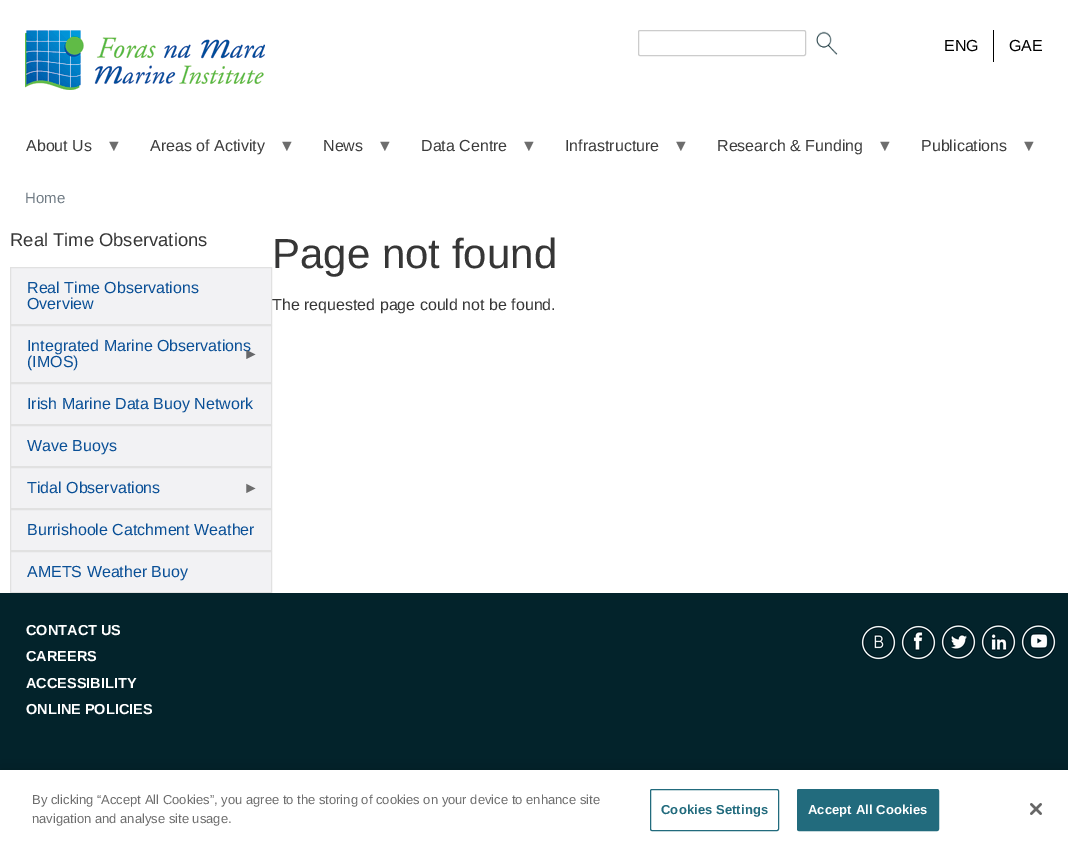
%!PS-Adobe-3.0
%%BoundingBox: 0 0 1068 852
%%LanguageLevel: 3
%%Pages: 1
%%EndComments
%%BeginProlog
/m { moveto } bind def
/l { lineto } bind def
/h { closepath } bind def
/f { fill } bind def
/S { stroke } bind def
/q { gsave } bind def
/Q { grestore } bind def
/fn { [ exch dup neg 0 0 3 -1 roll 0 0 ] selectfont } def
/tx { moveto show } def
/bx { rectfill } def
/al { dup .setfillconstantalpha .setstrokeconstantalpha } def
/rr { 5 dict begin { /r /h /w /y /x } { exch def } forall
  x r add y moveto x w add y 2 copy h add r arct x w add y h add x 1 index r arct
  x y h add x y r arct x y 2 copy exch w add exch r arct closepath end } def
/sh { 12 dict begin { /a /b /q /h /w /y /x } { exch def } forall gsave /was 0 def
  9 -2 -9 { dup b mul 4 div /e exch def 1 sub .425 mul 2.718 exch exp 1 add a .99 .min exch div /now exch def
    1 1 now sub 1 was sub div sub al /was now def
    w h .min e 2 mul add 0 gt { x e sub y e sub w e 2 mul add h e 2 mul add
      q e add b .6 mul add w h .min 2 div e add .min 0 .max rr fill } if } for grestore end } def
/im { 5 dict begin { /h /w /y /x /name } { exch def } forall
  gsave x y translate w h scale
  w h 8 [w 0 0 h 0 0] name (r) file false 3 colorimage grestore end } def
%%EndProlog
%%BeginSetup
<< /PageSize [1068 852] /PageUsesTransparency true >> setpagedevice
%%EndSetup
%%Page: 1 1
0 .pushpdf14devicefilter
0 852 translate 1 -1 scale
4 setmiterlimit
1 setgray
0 0 1068 852 bx
(image0.raw) 25 30 240 60 im
0.8 setgray
638.5 30.5 167 25 1.5 rr S
(image1.raw) 816 31 22 24 im
0 setgray
993 30 1 32 bx
/LiberationSans-Regular 16 fn
(ENG) 944 51 tx
(GAE) 1009 51 tx
0.235 setgray
(About Us) 26 151 tx
0.427 setgray
(▼) 106 151 tx
0.235 setgray
(Areas of Activity) 150 151 tx
0.427 setgray
(▼) 279 151 tx
0.235 setgray
(News) 323 151 tx
0.427 setgray
(▼) 377 151 tx
0.235 setgray
(Data Centre) 421 151 tx
0.427 setgray
(▼) 521 151 tx
0.235 setgray
(Infrastructure) 565 151 tx
0.427 setgray
(▼) 673 151 tx
0.235 setgray
(Research & Funding) 717 151 tx
0.427 setgray
(▼) 877 151 tx
0.235 setgray
(Publications) 921 151 tx
0.427 setgray
(▼) 1021 151 tx
/LiberationSans-Regular 15 fn
0.443 0.486 0.522 setrgbcolor
(Home) 25 203 tx
/LiberationSans-Regular 18.4 fn
0.212 setgray
(Real Time Observations) 10 246 tx
0.949 0.949 0.957 setrgbcolor
10.5 267.5 m 271.5 267.5 l 271.5 324.5 l 10.5 324.5 l h q f Q
0.882 setgray
S
/LiberationSans-Regular 16 fn
0.035 0.31 0.588 setrgbcolor
(Real Time Observations) 27 293 tx
(Overview) 27 309 tx
0.949 0.949 0.957 setrgbcolor
10.5 325.5 m 271.5 325.5 l 271.5 382.5 l 10.5 382.5 l h q f Q
0.882 setgray
S
0.035 0.31 0.588 setrgbcolor
(Integrated Marine Observations) 27 351 tx
(\(IMOS\)) 27 367 tx
0.4 0.404 0.412 setrgbcolor
(►) 243 359 tx
0.949 0.949 0.957 setrgbcolor
10.5 383.5 m 271.5 383.5 l 271.5 424.5 l 10.5 424.5 l h q f Q
0.882 setgray
S
0.035 0.31 0.588 setrgbcolor
(Irish Marine Data Buoy Network) 27 409 tx
0.949 0.949 0.957 setrgbcolor
10.5 425.5 m 271.5 425.5 l 271.5 466.5 l 10.5 466.5 l h q f Q
0.882 setgray
S
0.035 0.31 0.588 setrgbcolor
(Wave Buoys) 27 451 tx
0.949 0.949 0.957 setrgbcolor
10.5 467.5 m 271.5 467.5 l 271.5 508.5 l 10.5 508.5 l h q f Q
0.882 setgray
S
0.035 0.31 0.588 setrgbcolor
(Tidal Observations) 27 493 tx
0.427 setgray
(►) 243 493 tx
0.949 0.949 0.957 setrgbcolor
10.5 509.5 m 271.5 509.5 l 271.5 550.5 l 10.5 550.5 l h q f Q
0.882 setgray
S
0.035 0.31 0.588 setrgbcolor
(Burrishoole Catchment Weather) 27 535 tx
0.949 0.949 0.957 setrgbcolor
10.5 551.5 m 271.5 551.5 l 271.5 592.5 l 10.5 592.5 l h q f Q
0.882 setgray
S
0.035 0.31 0.588 setrgbcolor
(AMETS Weather Buoy) 27 577 tx
/LiberationSans-Regular 42 fn
0.212 setgray
(Page not found) 272 268 tx
/LiberationSans-Regular 16 fn
(The requested page could not be found.) 272 310 tx
0.012 0.137 0.169 setrgbcolor
0 593 1068 177 bx
/LiberationSans-Bold 14.5 fn
1 setgray
(CONTACT US) 26 635 tx
(CAREERS) 26 661 tx
(ACCESSIBILITY) 26 688 tx
(ONLINE POLICIES) 26 714 tx
(image2.raw) 861 625 35 35 im
(image3.raw) 901 625 35 35 im
(image4.raw) 941 624 35 36 im
(image5.raw) 981 624 35 36 im
(image6.raw) 1021 624 35 36 im
0 setgray
0 770 1068 82 0 9 0.2 sh
1 setgray
0 770 1068 82 bx
/LiberationSans-Regular 13 fn
0.427 setgray
(By clicking “Accept All Cookies”, you agree to the storing of cookies on your device to enhance site) 32 804 tx
(navigation and analyse site usage.) 32 823 tx
0.133 0.42 0.49 setrgbcolor
650.5 789.5 128 41 1.5 rr S
/LiberationSans-Bold 13 fn
661 814 m 0.1 0 (Cookies Settings) ashow
797.5 789.5 141 41 1.5 rr q f Q
S
1 setgray
808 814 m 0.1 0 (Accept All Cookies) ashow
(image7.raw) 1030 803 12 12 im
.poppdf14devicefilter showpage
%%EOF
